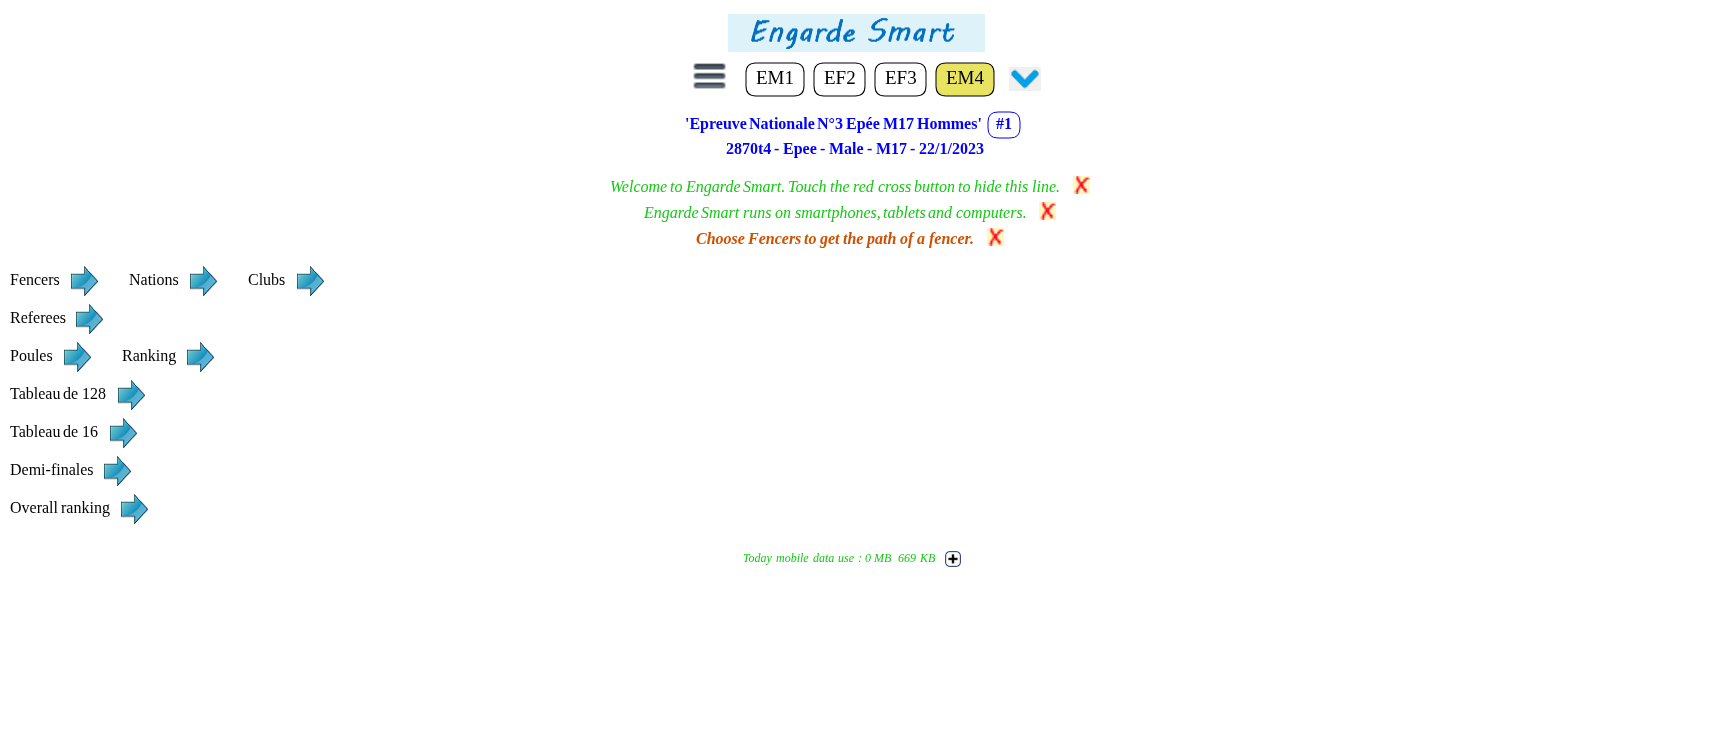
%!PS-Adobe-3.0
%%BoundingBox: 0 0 1714 735
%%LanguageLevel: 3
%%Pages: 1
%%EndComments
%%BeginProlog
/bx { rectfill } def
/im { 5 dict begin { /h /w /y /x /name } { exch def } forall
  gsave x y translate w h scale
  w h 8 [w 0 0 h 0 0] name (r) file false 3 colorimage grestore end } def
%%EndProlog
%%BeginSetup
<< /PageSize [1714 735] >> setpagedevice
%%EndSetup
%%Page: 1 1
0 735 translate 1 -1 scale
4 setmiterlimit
1 setgray
0 0 1714 735 bx
(image0.raw) 10 14 1080 553 im
showpage
%%EOF
